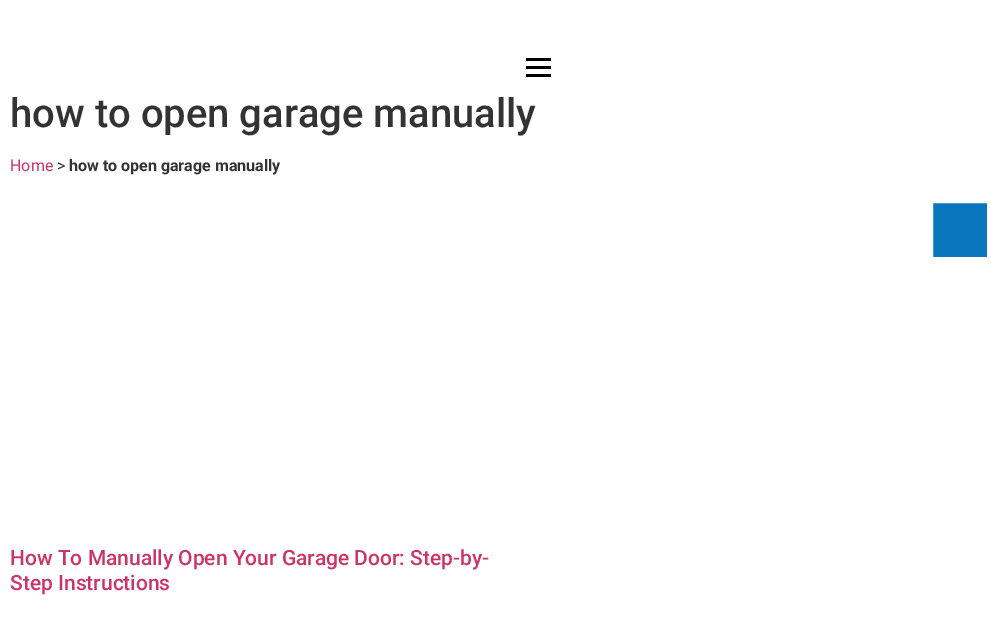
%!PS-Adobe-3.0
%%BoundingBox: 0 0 991 617
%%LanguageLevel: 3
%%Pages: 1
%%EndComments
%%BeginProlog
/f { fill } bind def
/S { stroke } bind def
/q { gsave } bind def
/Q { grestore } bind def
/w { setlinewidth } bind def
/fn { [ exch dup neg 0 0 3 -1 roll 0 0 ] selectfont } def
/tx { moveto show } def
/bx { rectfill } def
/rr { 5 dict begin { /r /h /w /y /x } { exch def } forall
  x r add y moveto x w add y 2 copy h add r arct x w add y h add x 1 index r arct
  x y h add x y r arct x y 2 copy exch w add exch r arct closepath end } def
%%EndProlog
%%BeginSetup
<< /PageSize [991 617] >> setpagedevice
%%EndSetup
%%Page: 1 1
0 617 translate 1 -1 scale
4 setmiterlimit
1 setgray
0 0 991 617 bx
0 setgray
526 58 25 3 bx
526 66 25 3 bx
526 74 25 3 bx
/Roboto-Medium 40 fn
0.2 setgray
(how to open garage manually) 10 127 tx
/Roboto-Regular 16 fn
0.8 0.2 0.4 setrgbcolor
(Home) 10 171 tx
0.2 setgray
(>) 57 171 tx
/Roboto-Bold 16 fn
(how to open garage manually) 69 171 tx
/Roboto-Medium 21 fn
0.8 0.2 0.4 setrgbcolor
(How To Manually Open Your Garage Door: Step-by-) 10 565 tx
(Step Instructions) 10 590 tx
0.039 0.463 0.745 setrgbcolor
931.5 201.5 57 57 0.5 rr q f Q
1 setgray
3 w
S
showpage
%%EOF
